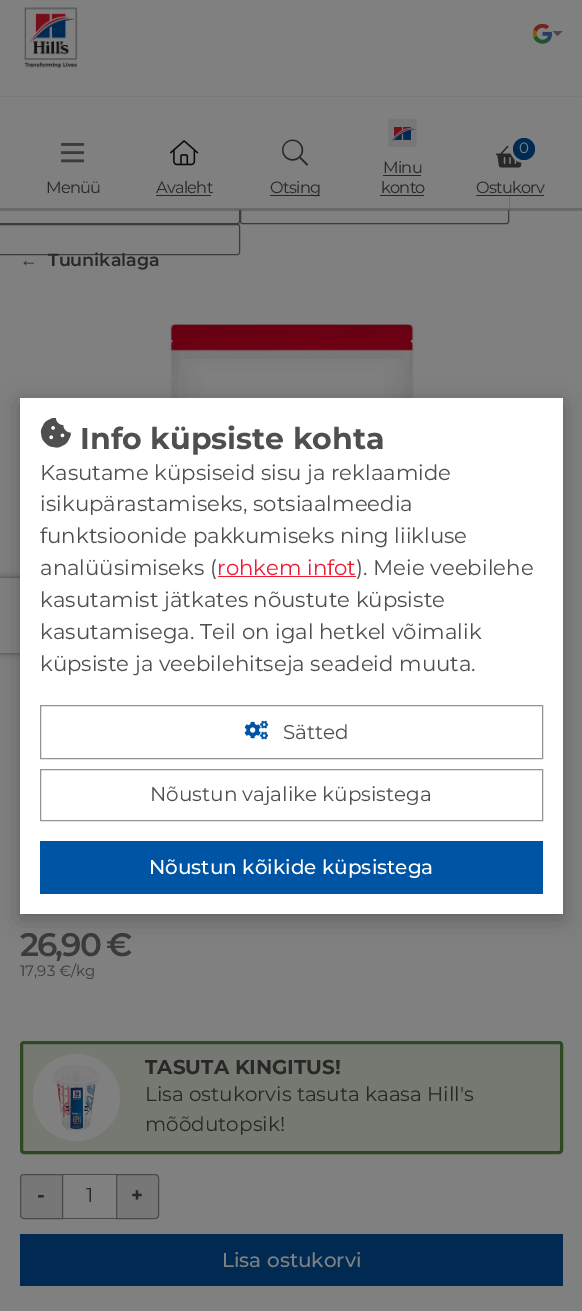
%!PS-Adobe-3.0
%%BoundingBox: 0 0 582 1311
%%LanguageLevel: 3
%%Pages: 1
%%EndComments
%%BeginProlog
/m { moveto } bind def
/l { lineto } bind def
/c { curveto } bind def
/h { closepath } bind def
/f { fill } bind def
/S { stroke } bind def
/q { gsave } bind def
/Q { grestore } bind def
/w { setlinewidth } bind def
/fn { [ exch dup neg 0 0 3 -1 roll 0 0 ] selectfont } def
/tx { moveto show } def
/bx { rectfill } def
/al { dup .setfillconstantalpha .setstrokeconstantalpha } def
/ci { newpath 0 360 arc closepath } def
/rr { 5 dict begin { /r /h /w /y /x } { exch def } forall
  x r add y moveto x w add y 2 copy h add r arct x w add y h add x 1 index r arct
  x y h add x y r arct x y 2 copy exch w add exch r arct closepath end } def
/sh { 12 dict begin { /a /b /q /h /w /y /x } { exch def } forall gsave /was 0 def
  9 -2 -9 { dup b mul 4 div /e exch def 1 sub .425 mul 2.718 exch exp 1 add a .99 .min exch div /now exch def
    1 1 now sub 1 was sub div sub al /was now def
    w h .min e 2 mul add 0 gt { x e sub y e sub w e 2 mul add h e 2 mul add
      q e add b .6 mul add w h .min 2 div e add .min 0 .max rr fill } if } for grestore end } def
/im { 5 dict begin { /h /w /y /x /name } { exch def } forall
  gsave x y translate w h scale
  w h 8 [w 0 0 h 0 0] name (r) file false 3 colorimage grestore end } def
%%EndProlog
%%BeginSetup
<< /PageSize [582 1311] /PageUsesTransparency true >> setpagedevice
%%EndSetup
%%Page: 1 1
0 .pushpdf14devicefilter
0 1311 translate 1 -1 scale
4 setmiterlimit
0.502 setgray
0 0 582 1311 bx
(image0.raw) 533 24 19 20 im
0.29 setgray
552.5 31 m 562.5 31 l 557.5 36 l h f
0.475 setgray
0 96 582 1 bx
(image1.raw) 24 7 54 61 im
0.231 setgray
-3.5 194.5 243 29 2 rr S
240.5 194.5 268 29 2 rr S
0.502 setgray
0 194 509 16 bx
0.4 al
0.275 setgray
0 208 582 3 bx
1 al
(image2.raw) 61 143 23 20 im
/Montserrat-Regular 16.25 fn
0.157 setgray
46 193 m -0.75 0 (Menüü) ashow
(image3.raw) 170 140 29 26 im
156 193 m -0.75 0 (Avaleht) ashow
156 195 55 1 bx
(image4.raw) 282 139 27 27 im
270 195 50 1 bx
270 193 m -0.75 0 (Otsing) ashow
(image5.raw) 388 118 29 29 im
383 173 m -0.75 0 (Minu) ashow
383 175 38 1 bx
381 193 m -0.75 0 (konto) ashow
380 195 44 1 bx
(image6.raw) 496 145 26 23 im
0.502 setgray
3 w
524 149 12.5 ci S
0 0.165 0.322 setrgbcolor
524 149 11 ci f
/Montserrat-Regular 15 fn
0.502 setgray
519 153 m -0.75 0 (0) ashow
/Montserrat-Regular 16.25 fn
0.157 setgray
476 193 m -0.75 0 (Ostukorv) ashow
476 195 68 1 bx
/LiberationSans-Bold 17.5 fn
(←) 20 266 tx
0.231 setgray
1 w
-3.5 224.5 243 30 2 rr S
/Montserrat-SemiBold 17.5 fn
0.157 setgray
(Tuunikalaga) 48 266 tx
(image7.raw) 155 324 273 74 im
/Montserrat-SemiBold 32.5 fn
0.231 setgray
20 956 m -2 0 (26,90 €) ashow
/Montserrat-Regular 15 fn
(17,93 €/kg) 20 976 tx
0.459 0.475 0.443 setrgbcolor
21.5 1042.5 540 110 2.5 rr q f Q
0.18 0.282 0.141 setrgbcolor
3 w
S
0.502 setgray
76.5 1097.5 43.5 ci f
(image8.raw) 32 1057 88 81 im
/Montserrat-Bold 20 fn
0.157 setgray
(TASUTA KINGITUS!) 145 1074 tx
/Montserrat-Regular 20 fn
(Lisa ostukorvis tasuta kaasa Hill's) 145 1101 tx
(mõõdutopsik!) 145 1131 tx
0.29 setgray
61 1174 57 1 bx
61 1218 57 1 bx
0.467 setgray
24 1174.5 m 62.5 1174.5 l 62.5 1218.5 l 24 1218.5 l 22 1218.5 20.5 1217 20.5 1215 c 20.5 1178 l 20.5 1176 22 1174.5 24 1174.5 c h q f Q
0.29 setgray
1 w
S
/Montserrat-Bold 20 fn
0.157 setgray
(-) 37 1202 tx
/Montserrat-Regular 20 fn
(1) 86 1202 tx
0.467 setgray
116.5 1174.5 m 155 1174.5 l 157 1174.5 158.5 1176 158.5 1178 c 158.5 1215 l 158.5 1217 157 1218.5 155 1218.5 c 116.5 1218.5 l h q f Q
0.29 setgray
S
/Montserrat-Bold 20 fn
0.157 setgray
(+) 131 1202 tx
0 0.165 0.322 setrgbcolor
20 1234 543 52 bx
/Montserrat-Medium 20 fn
0.502 setgray
(Lisa ostukorvi) 222 1267 tx
0 setgray
20 403 543 516 0 12.5 0.25 sh
q
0 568 m 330 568 l 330 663 l 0 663 l h 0 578 m 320 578 l 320 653 l 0 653 l h eoclip newpath
0.251 setgray
0 578 320 75 0 3 1 sh
Q
1 setgray
20 398 543 516 bx
(image9.raw) 40 418 31 30 im
/Montserrat-Bold 30 fn
0.31 0.31 0.314 setrgbcolor
(Info küpsiste kohta) 80 449 tx
/Montserrat-Regular 21.25 fn
(Kasutame küpsiseid sisu ja reklaamide) 40 480 tx
(isikupärastamiseks, sotsiaalmeedia) 40 511 tx
(funktsioonide pakkumiseks ning liikluse) 40 543 tx
(analüüsimiseks \() 40 575 tx
0.929 0.106 0.204 setrgbcolor
(rohkem infot) 217 575 tx
218 576 138 1 bx
0.31 0.31 0.314 setrgbcolor
(\). Meie veebilehe) 356 575 tx
(kasutamist jätkates nõustute küpsiste) 40 607 tx
(kasutamisega. Teil on igal hetkel võimalik) 40 639 tx
(küpsiste ja veebilehitseja seadeid muuta.) 40 671 tx
0.58 setgray
40.5 705.5 502 53 rectstroke
(image10.raw) 244 720 24 20 im
/Montserrat-Regular 20 fn
0.31 0.31 0.314 setrgbcolor
(Sätted) 283 739 tx
0.58 setgray
40.5 769.5 502 51 rectstroke
0.31 0.31 0.314 setrgbcolor
(Nõustun vajalike küpsistega) 150 801 tx
0 0.329 0.643 setrgbcolor
40 841 503 53 bx
/Montserrat-Medium 20 fn
1 setgray
(Nõustun kõikide küpsistega) 149 874 tx
.poppdf14devicefilter showpage
%%EOF
